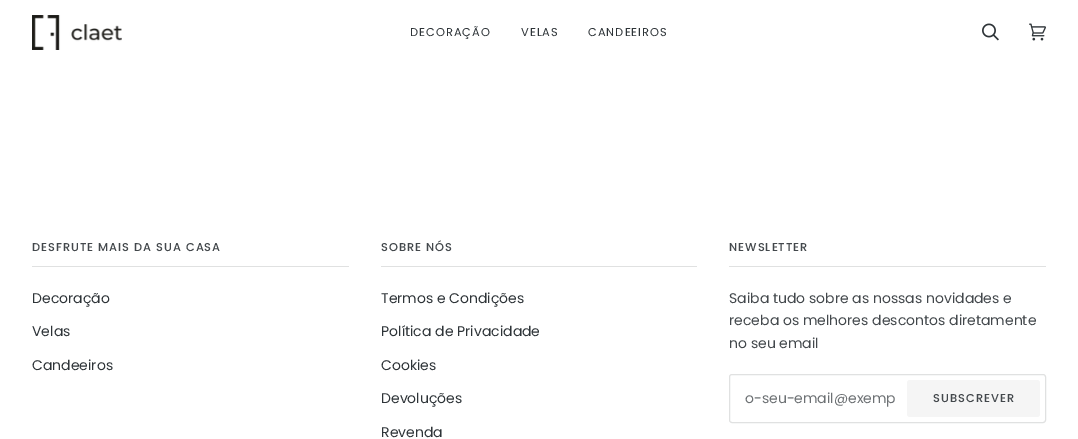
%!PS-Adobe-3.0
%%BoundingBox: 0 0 1078 439
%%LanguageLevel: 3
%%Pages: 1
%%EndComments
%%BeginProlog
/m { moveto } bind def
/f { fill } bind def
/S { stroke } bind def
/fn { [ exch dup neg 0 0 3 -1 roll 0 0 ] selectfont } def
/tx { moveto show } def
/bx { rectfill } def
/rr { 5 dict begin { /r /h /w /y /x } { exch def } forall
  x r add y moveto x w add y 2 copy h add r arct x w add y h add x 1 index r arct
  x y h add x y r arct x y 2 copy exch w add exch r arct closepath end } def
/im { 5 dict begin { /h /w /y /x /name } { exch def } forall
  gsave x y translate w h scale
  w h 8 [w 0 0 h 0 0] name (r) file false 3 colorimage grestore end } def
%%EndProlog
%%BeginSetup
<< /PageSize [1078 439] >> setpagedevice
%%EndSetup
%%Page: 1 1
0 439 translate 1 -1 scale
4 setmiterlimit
1 setgray
0 0 1078 439 bx
(image0.raw) 32 15 90 35 im
/Poppins-Regular 11.4 fn
0.18 0.204 0.22 setrgbcolor
410 36 m 1 0 (DECORAÇÃO) ashow
521 36 m 1 0 (VELAS) ashow
588 36 m 1 0 (CANDEEIROS) ashow
(image1.raw) 982 23 17 18 im
(image2.raw) 1029 23 17 18 im
0.878 0.882 0.882 setrgbcolor
32 266 317 1 bx
/Poppins-Medium 11.4 fn
0.263 0.282 0.298 setrgbcolor
32 251 m 1 0 (DESFRUTE MAIS DA SUA CASA) ashow
/Poppins-Regular 14 fn
0.18 0.204 0.22 setrgbcolor
(Decoração) 32 303 tx
(Velas) 32 336 tx
(Candeeiros) 32 370 tx
0.878 0.882 0.882 setrgbcolor
381 266 316 1 bx
/Poppins-Medium 11.4 fn
0.263 0.282 0.298 setrgbcolor
381 251 m 1 0 (SOBRE NÓS) ashow
/Poppins-Regular 14 fn
0.18 0.204 0.22 setrgbcolor
(Termos e Condições) 381 303 tx
(Política de Privacidade) 381 336 tx
(Cookies) 381 370 tx
(Devoluções) 381 403 tx
(Revenda) 381 437 tx
0.878 0.882 0.882 setrgbcolor
729 266 317 1 bx
/Poppins-Medium 11.4 fn
0.263 0.282 0.298 setrgbcolor
729 251 m 1 0 (NEWSLETTER) ashow
/Poppins-Regular 14 fn
(Saiba tudo sobre as nossas novidades e) 729 303 tx
(receba os melhores descontos diretamente) 729 325 tx
(no seu email) 729 348 tx
0.878 0.882 0.882 setrgbcolor
729.5 374.5 316 48 2.5 rr S
0.427 0.443 0.455 setrgbcolor
(o-seu-email@exemp) 745 403 tx
0.961 setgray
907 380 133 37 3 rr f
/Poppins-Medium 11.4 fn
0.263 0.282 0.298 setrgbcolor
933 402 m 1 0 (SUBSCREVER) ashow
showpage
%%EOF
